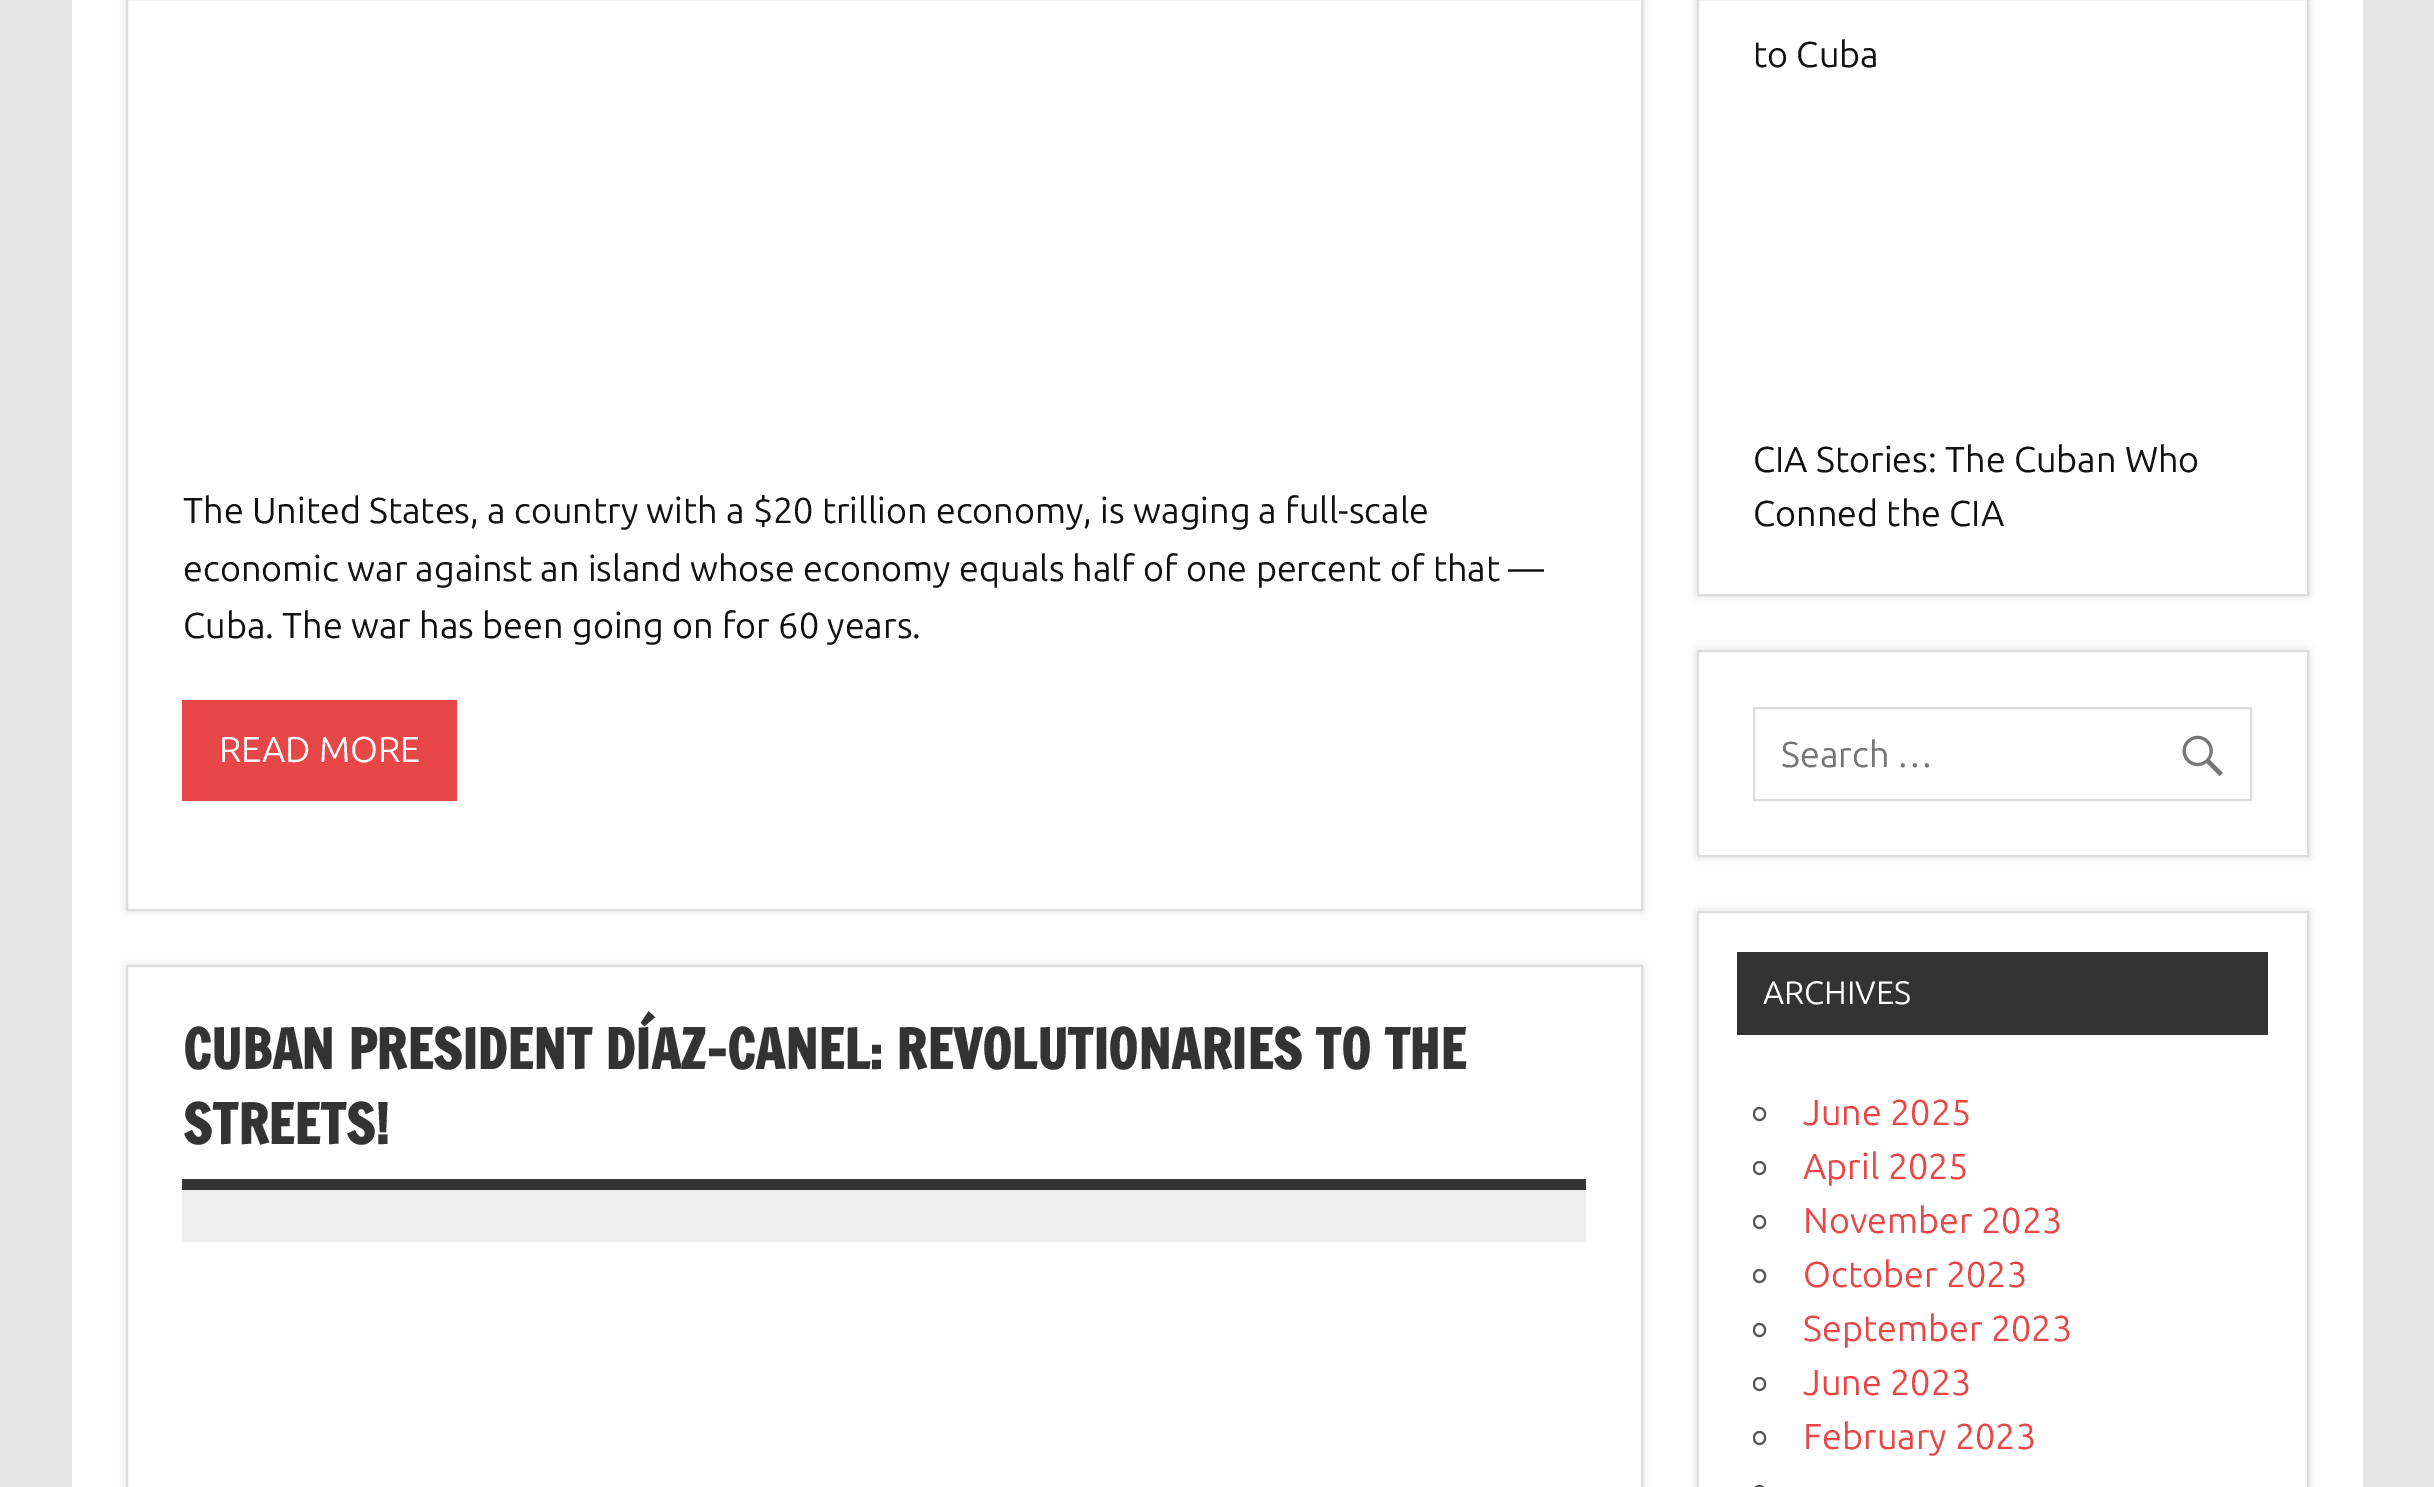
%!PS-Adobe-3.0
%%BoundingBox: 0 0 2434 1487
%%LanguageLevel: 3
%%Pages: 1
%%EndComments
%%BeginProlog
/m { moveto } bind def
/l { lineto } bind def
/h { closepath } bind def
/f { fill } bind def
/S { stroke } bind def
/q { gsave } bind def
/Q { grestore } bind def
/w { setlinewidth } bind def
/fn { [ exch dup neg 0 0 3 -1 roll 0 0 ] selectfont } def
/tx { moveto show } def
/bx { rectfill } def
/al { dup .setfillconstantalpha .setstrokeconstantalpha } def
/rr { 5 dict begin { /r /h /w /y /x } { exch def } forall
  x r add y moveto x w add y 2 copy h add r arct x w add y h add x 1 index r arct
  x y h add x y r arct x y 2 copy exch w add exch r arct closepath end } def
/sh { 12 dict begin { /a /b /q /h /w /y /x } { exch def } forall gsave /was 0 def
  9 -2 -9 { dup b mul 4 div /e exch def 1 sub .425 mul 2.718 exch exp 1 add a .99 .min exch div /now exch def
    1 1 now sub 1 was sub div sub al /was now def
    w h .min e 2 mul add 0 gt { x e sub y e sub w e 2 mul add h e 2 mul add
      q e add b .6 mul add w h .min 2 div e add .min 0 .max rr fill } if } for grestore end } def
/im { 5 dict begin { /h /w /y /x /name } { exch def } forall
  gsave x y translate w h scale
  w h 8 [w 0 0 h 0 0] name (r) file false 3 colorimage grestore end } def
%%EndProlog
%%BeginSetup
<< /PageSize [2434 1487] /PageUsesTransparency true >> setpagedevice
%%EndSetup
%%Page: 1 1
0 .pushpdf14devicefilter
0 1487 translate 1 -1 scale
4 setmiterlimit
0.898 setgray
0 0 2434 1487 bx
1 setgray
72 0 2291 1487 bx
0.867 setgray
126 -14 1517 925 0 4.5 1 sh
1 setgray
127 -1 m 1642 -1 l 1642 910 l 127 910 l h q f Q
0.867 setgray
2 w
S
/Ubuntu-Regular 36 fn
0.067 setgray
(The United States, a country with a $20 trillion economy, is waging a full-scale) 183 523 tx
(economic war against an island whose economy equals half of one percent of that —) 183 581 tx
(Cuba. The war has been going on for 60 years.) 183 638 tx
0.91 0.278 0.278 setrgbcolor
182 700 275 101 bx
1 setgray
(READ MORE) 219 762 tx
0.867 setgray
126 965 1517 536 0 4.5 1 sh
1 setgray
127 966 m 1642 966 l 1642 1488 l 127 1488 l h q f Q
0.867 setgray
S
0.2 setgray
182 1179 1404 11 bx
/FrancoisOne-Bold 54 fn
(CUBAN PRESIDENT DÍAZ-CANEL: REVOLUTIONARIES TO THE) 183 1069 tx
(STREETS!) 183 1144 tx
0.933 setgray
182 1190 1404 52 bx
0.867 setgray
1697 -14 612 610 0 4.5 1 sh
1 setgray
1698 -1 m 2308 -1 l 2308 595 l 1698 595 l h q f Q
0.867 setgray
S
/Ubuntu-Regular 36 fn
0.067 setgray
(to Cuba) 1753 67 tx
(CIA Stories: The Cuban Who) 1753 472 tx
(Conned the CIA) 1753 526 tx
0.867 setgray
1697 650 612 207 0 4.5 1 sh
1 setgray
1698 651 m 2308 651 l 2308 856 l 1698 856 l h q f Q
0.867 setgray
S
1754 708 497 92 rectstroke
0.459 setgray
(Search …) 1781 767 tx
(image0.raw) 2182 735 41 42 im
0.867 setgray
1697 911 612 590 0 4.5 1 sh
1 setgray
1698 912 m 2308 912 l 2308 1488 l 1698 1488 l h q f Q
0.867 setgray
S
0.2 setgray
1737 952 531 83 bx
/Ubuntu-Regular 32.5 fn
1 setgray
(ARCHIVES) 1763 1004 tx
0.333 setgray
1754 1108 11 12 5.5 rr S
/Ubuntu-Regular 36 fn
0.91 0.278 0.278 setrgbcolor
(June 2025) 1803 1125 tx
0.333 setgray
1754 1162 11 12 5.5 rr S
0.91 0.278 0.278 setrgbcolor
(April 2025) 1803 1179 tx
0.333 setgray
1754 1216 11 12 5.5 rr S
0.91 0.278 0.278 setrgbcolor
(November 2023) 1803 1233 tx
0.333 setgray
1754 1270 11 12 5.5 rr S
0.91 0.278 0.278 setrgbcolor
(October 2023) 1803 1287 tx
0.333 setgray
1754 1324 11 12 5.5 rr S
0.91 0.278 0.278 setrgbcolor
(September 2023) 1803 1341 tx
0.333 setgray
1754 1378 11 12 5.5 rr S
0.91 0.278 0.278 setrgbcolor
(June 2023) 1803 1395 tx
0.333 setgray
1754 1432 11 12 5.5 rr S
0.91 0.278 0.278 setrgbcolor
(February 2023) 1803 1449 tx
0.333 setgray
1754 1486 11 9 5.5 rr S
.poppdf14devicefilter showpage
%%EOF
